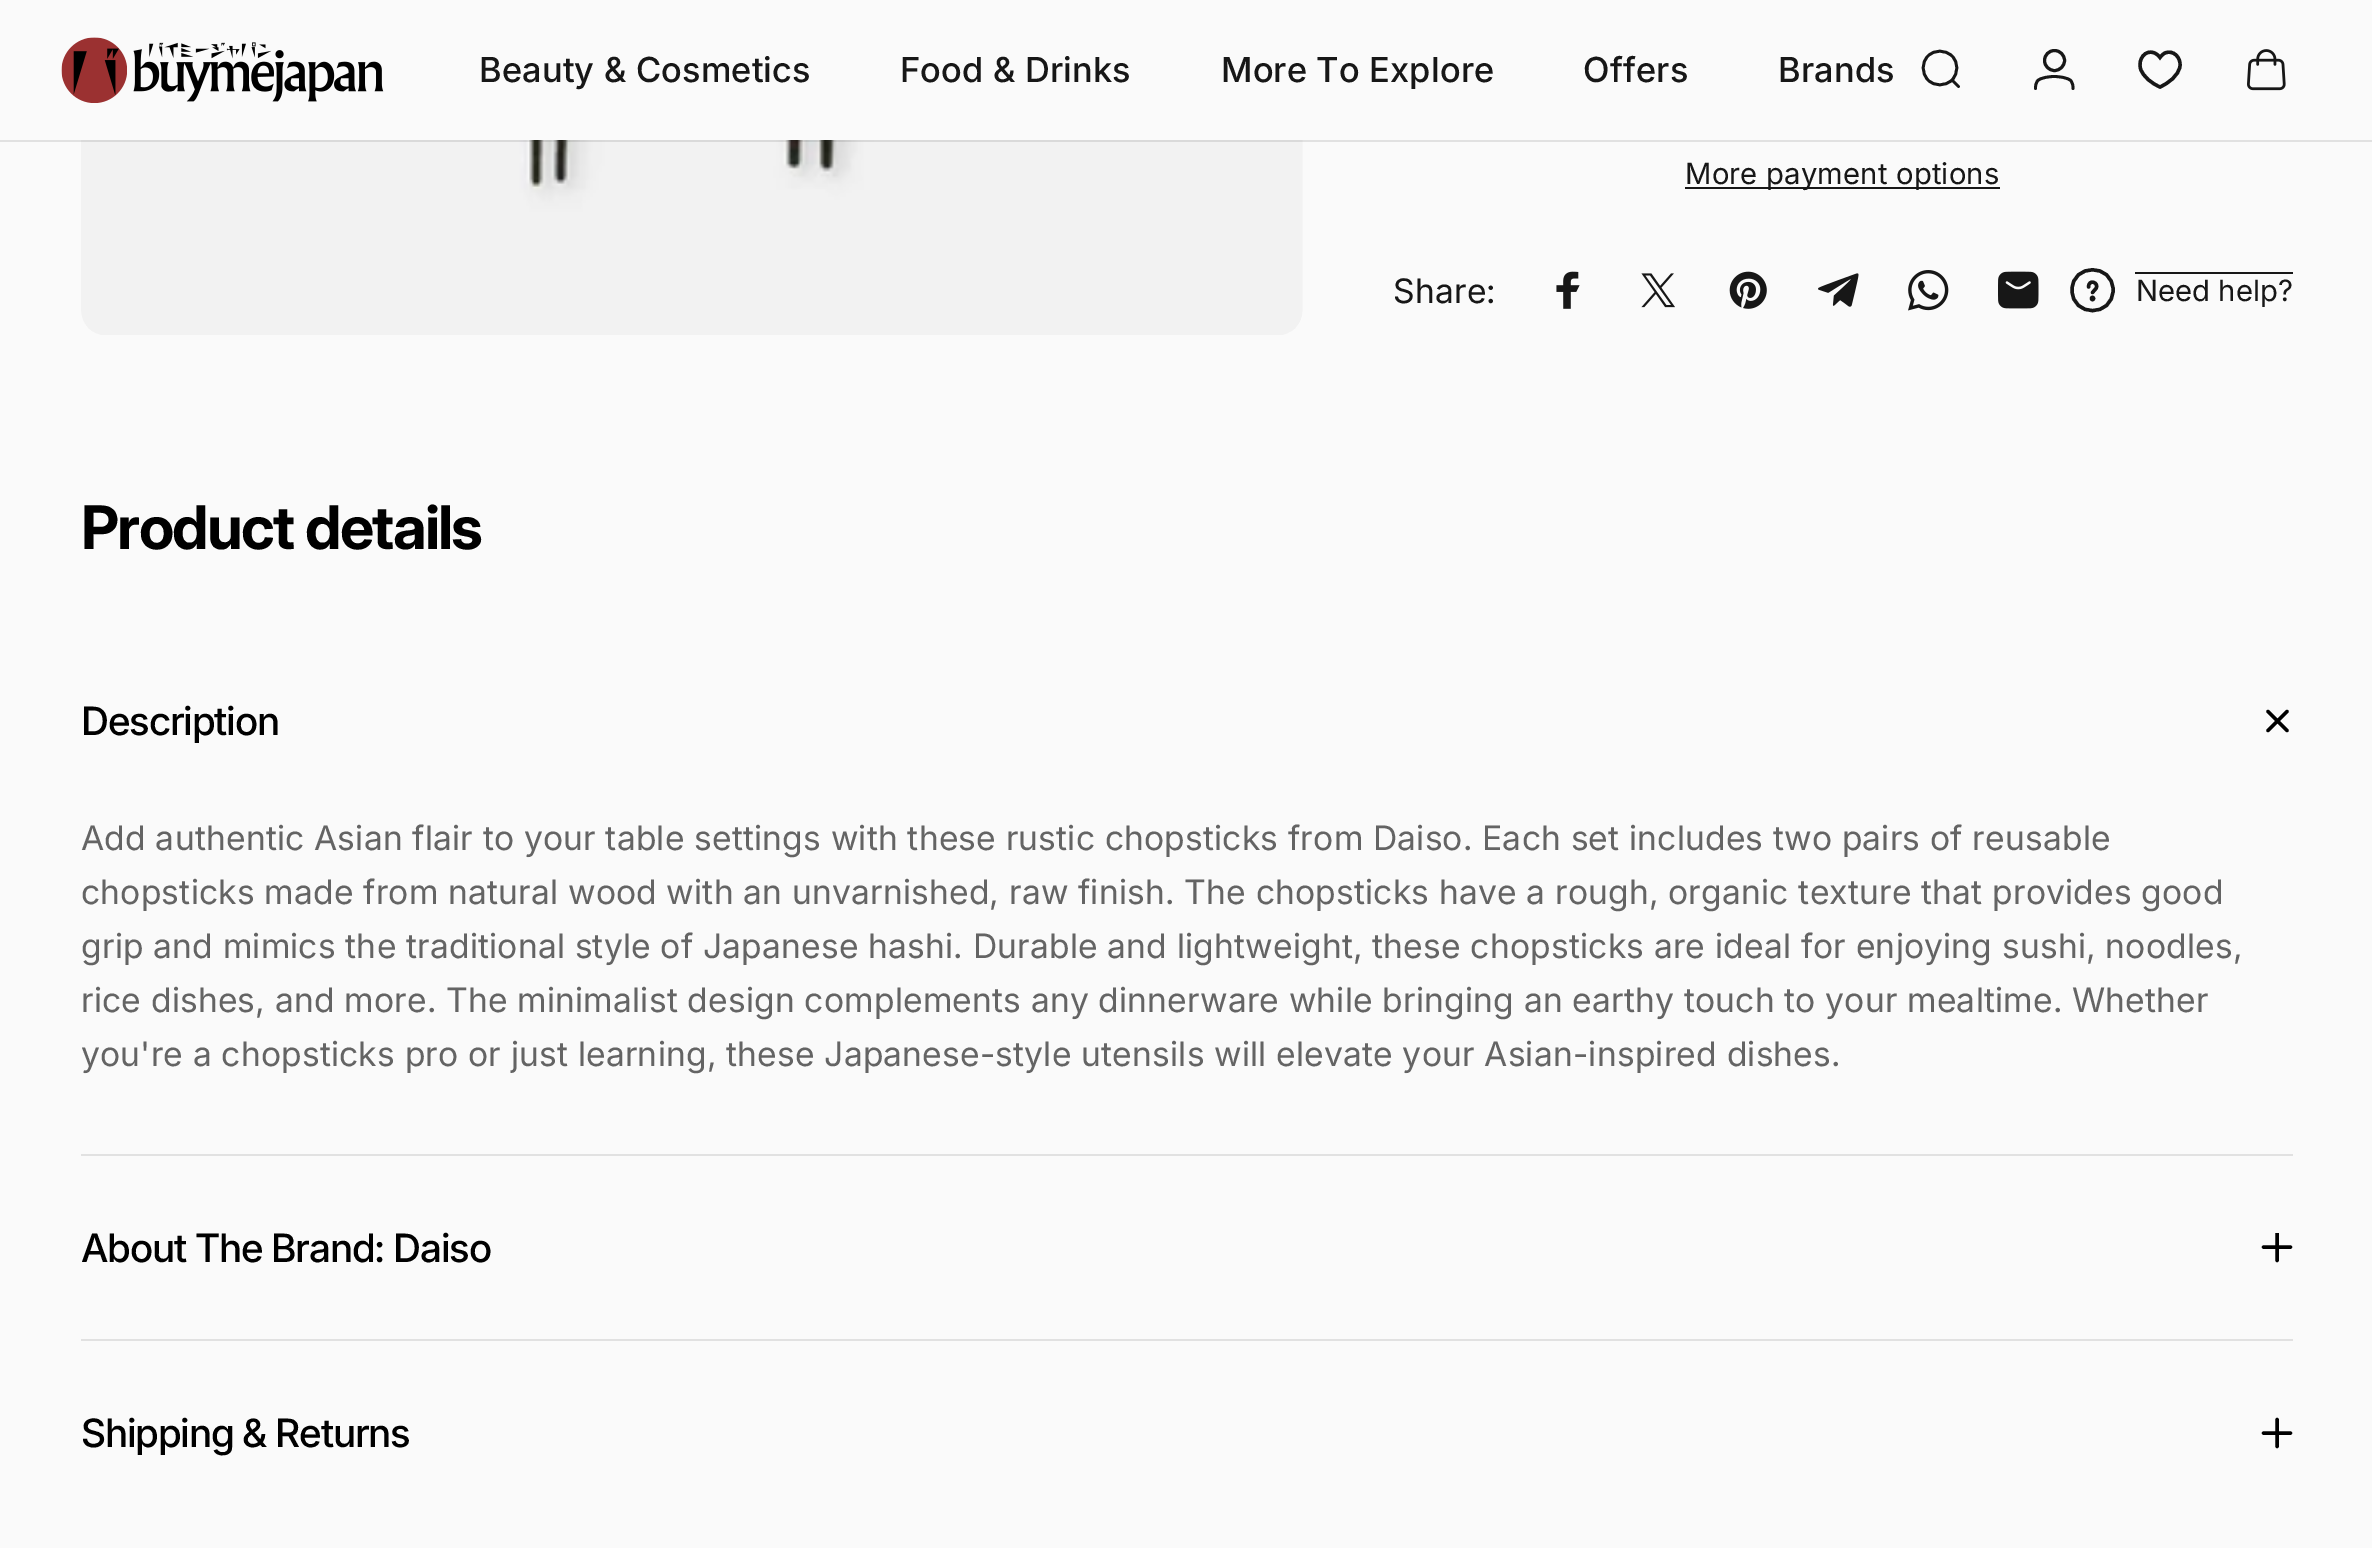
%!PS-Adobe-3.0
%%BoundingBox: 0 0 2372 1548
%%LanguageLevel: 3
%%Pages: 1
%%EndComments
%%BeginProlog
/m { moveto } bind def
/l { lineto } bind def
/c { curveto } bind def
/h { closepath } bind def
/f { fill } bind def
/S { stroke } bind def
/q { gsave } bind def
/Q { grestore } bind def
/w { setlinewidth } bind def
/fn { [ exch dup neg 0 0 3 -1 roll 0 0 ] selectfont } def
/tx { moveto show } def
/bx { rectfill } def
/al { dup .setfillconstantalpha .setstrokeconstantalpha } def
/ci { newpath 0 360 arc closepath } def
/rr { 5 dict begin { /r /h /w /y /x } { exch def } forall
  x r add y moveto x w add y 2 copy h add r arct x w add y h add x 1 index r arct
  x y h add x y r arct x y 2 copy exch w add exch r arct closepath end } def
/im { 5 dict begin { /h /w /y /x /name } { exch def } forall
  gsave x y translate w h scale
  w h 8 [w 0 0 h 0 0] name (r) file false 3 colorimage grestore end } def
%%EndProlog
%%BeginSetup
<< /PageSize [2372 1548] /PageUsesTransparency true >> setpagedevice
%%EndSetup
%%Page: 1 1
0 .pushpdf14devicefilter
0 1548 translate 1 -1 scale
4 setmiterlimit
0.98 setgray
0 0 2372 1548 bx
1 setgray
81 -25 1222 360 25 rr f
0.98 setgray
81 0 1222 140 bx
(image0.raw) 61 37 323 66 im
/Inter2-Medium 34.5 fn
0.09 setgray
479 82 m 0.17 0 (Beauty & Cosmetics) ashow
900 82 m 0.17 0 (Food & Drinks) ashow
1221 82 m 0.17 0 (More To Explore) ashow
1583 82 m 0.17 0 (Offers) ashow
1778 82 m 0.17 0 (Brands) ashow
2.8 w
1 setlinecap
1958.5 86.5 m 1952 80 l 1952 80 m 1958.5 73 1958.5 62.5 1952 56 c 1945 49.5 1934.5 49.5 1928 56 c 1921.5 62.5 1921.5 73 1928 80 c 1934.5 86.5 1945 86.5 1952 80 c h S
3 w
0 setlinecap
2054.5 60.5 10 ci S
2.8 w
1 setlinecap
2054 76.5 m 2058.5 76.5 2068.5 77.5 2071 81 c 2073 83.5 2073 86 2073 88.5 c 2054 76.5 m 2050 76.5 2040 77.5 2037.5 81 c 2035.5 83.5 2035.5 86 2035.5 88.5 c S
3.4 w
0 setlinecap
2160 87 m 2152 83.5 2143 77 2140.5 68.5 c 2138 59.5 2145 49 2154.5 53 c 2157 54 2158.5 55.5 2160 57.5 c 2161.5 55.5 2163 54 2165 53 c 2173.5 49.5 2181 57.5 2180 66 c 2178.5 76 2168.5 83 2160 87 c h S
(image1.raw) 2247 49 39 42 im
(image2.raw) 81 140 1222 195 im
0.11 al
0 140 2372 2 bx
1 al
1685 187 315 2 bx
/Inter-Regular 29.25 fn
1685 184 m 0.17 0 (More payment options) ashow
/Inter2-Regular 33.75 fn
1393 303 m 0.17 0 (Share:) ashow
(image3.raw) 1556 271 24 38 im
(image4.raw) 1641 273 34 35 im
(image5.raw) 1729 271 38 38 im
(image6.raw) 1818 273 41 34 im
(image7.raw) 1908 270 41 41 im
(image8.raw) 1998 271 41 38 im
1 setlinecap
1 setlinejoin
2088.5 287 m 2088.5 278.5 2099.5 282.5 2096 288.5 c 2092.5 292.5 l 2093.5 298.5 m 2093.5 300 2091.5 300 2091.5 298.5 c 2093.5 298.5 m 2093.5 297 2091.5 297 2091.5 298.5 c 2093.5 298.5 m 2091.5 298.5 l 2113 290 m 2113 317.5 2072 317.5 2072 290 c 2072 263 2113 263 2113 290 c h S
2135 272 158 2 bx
/Inter-Regular 29.25 fn
(Need help?) 2136 301 tx
/Inter-Bold 60 fn
0 setgray
81 549 m -1.75 0 (Product details) ashow
/Inter-Medium 39 fn
81 735 m -1.2 0 (Description) ashow
2287 730.5 m 2268 711.5 l 2287 711.5 m 2268 730.5 l S
/Inter2-Regular 33.75 fn
0.392 setgray
81 850 m 0.17 0 (Add authentic Asian flair to your table settings with these rustic chopsticks from Daiso. Each set includes two pairs of reusable) ashow
81 904 m 0.17 0 (chopsticks made from natural wood with an unvarnished, raw finish. The chopsticks have a rough, organic texture that provides good) ashow
81 958 m 0.17 0 (grip and mimics the traditional style of Japanese hashi. Durable and lightweight, these chopsticks are ideal for enjoying sushi, noodles,) ashow
81 1012 m 0.17 0 (rice dishes, and more. The minimalist design complements any dinnerware while bringing an earthy touch to your mealtime. Whether) ashow
81 1066 m 0.17 0 (you're a chopsticks pro or just learning, these Japanese-style utensils will elevate your Asian-inspired dishes.) ashow
0.882 setgray
81 1154 2212 2 bx
/Inter-Medium 39 fn
0 setgray
81 1262 m -1.2 0 (About The Brand: Daiso) ashow
q
2261 1233 32 32 rectclip
2277 1260.5 m 2277 1233.5 l 2290.5 1247 m 2263.5 1247 l S
Q
0.882 setgray
81 1339 2212 2 bx
0 setgray
81 1447 m -1.2 0 (Shipping & Returns) ashow
2277 1446.5 m 2277 1419.5 l 2290.5 1433 m 2263.5 1433 l S
.poppdf14devicefilter showpage
%%EOF
